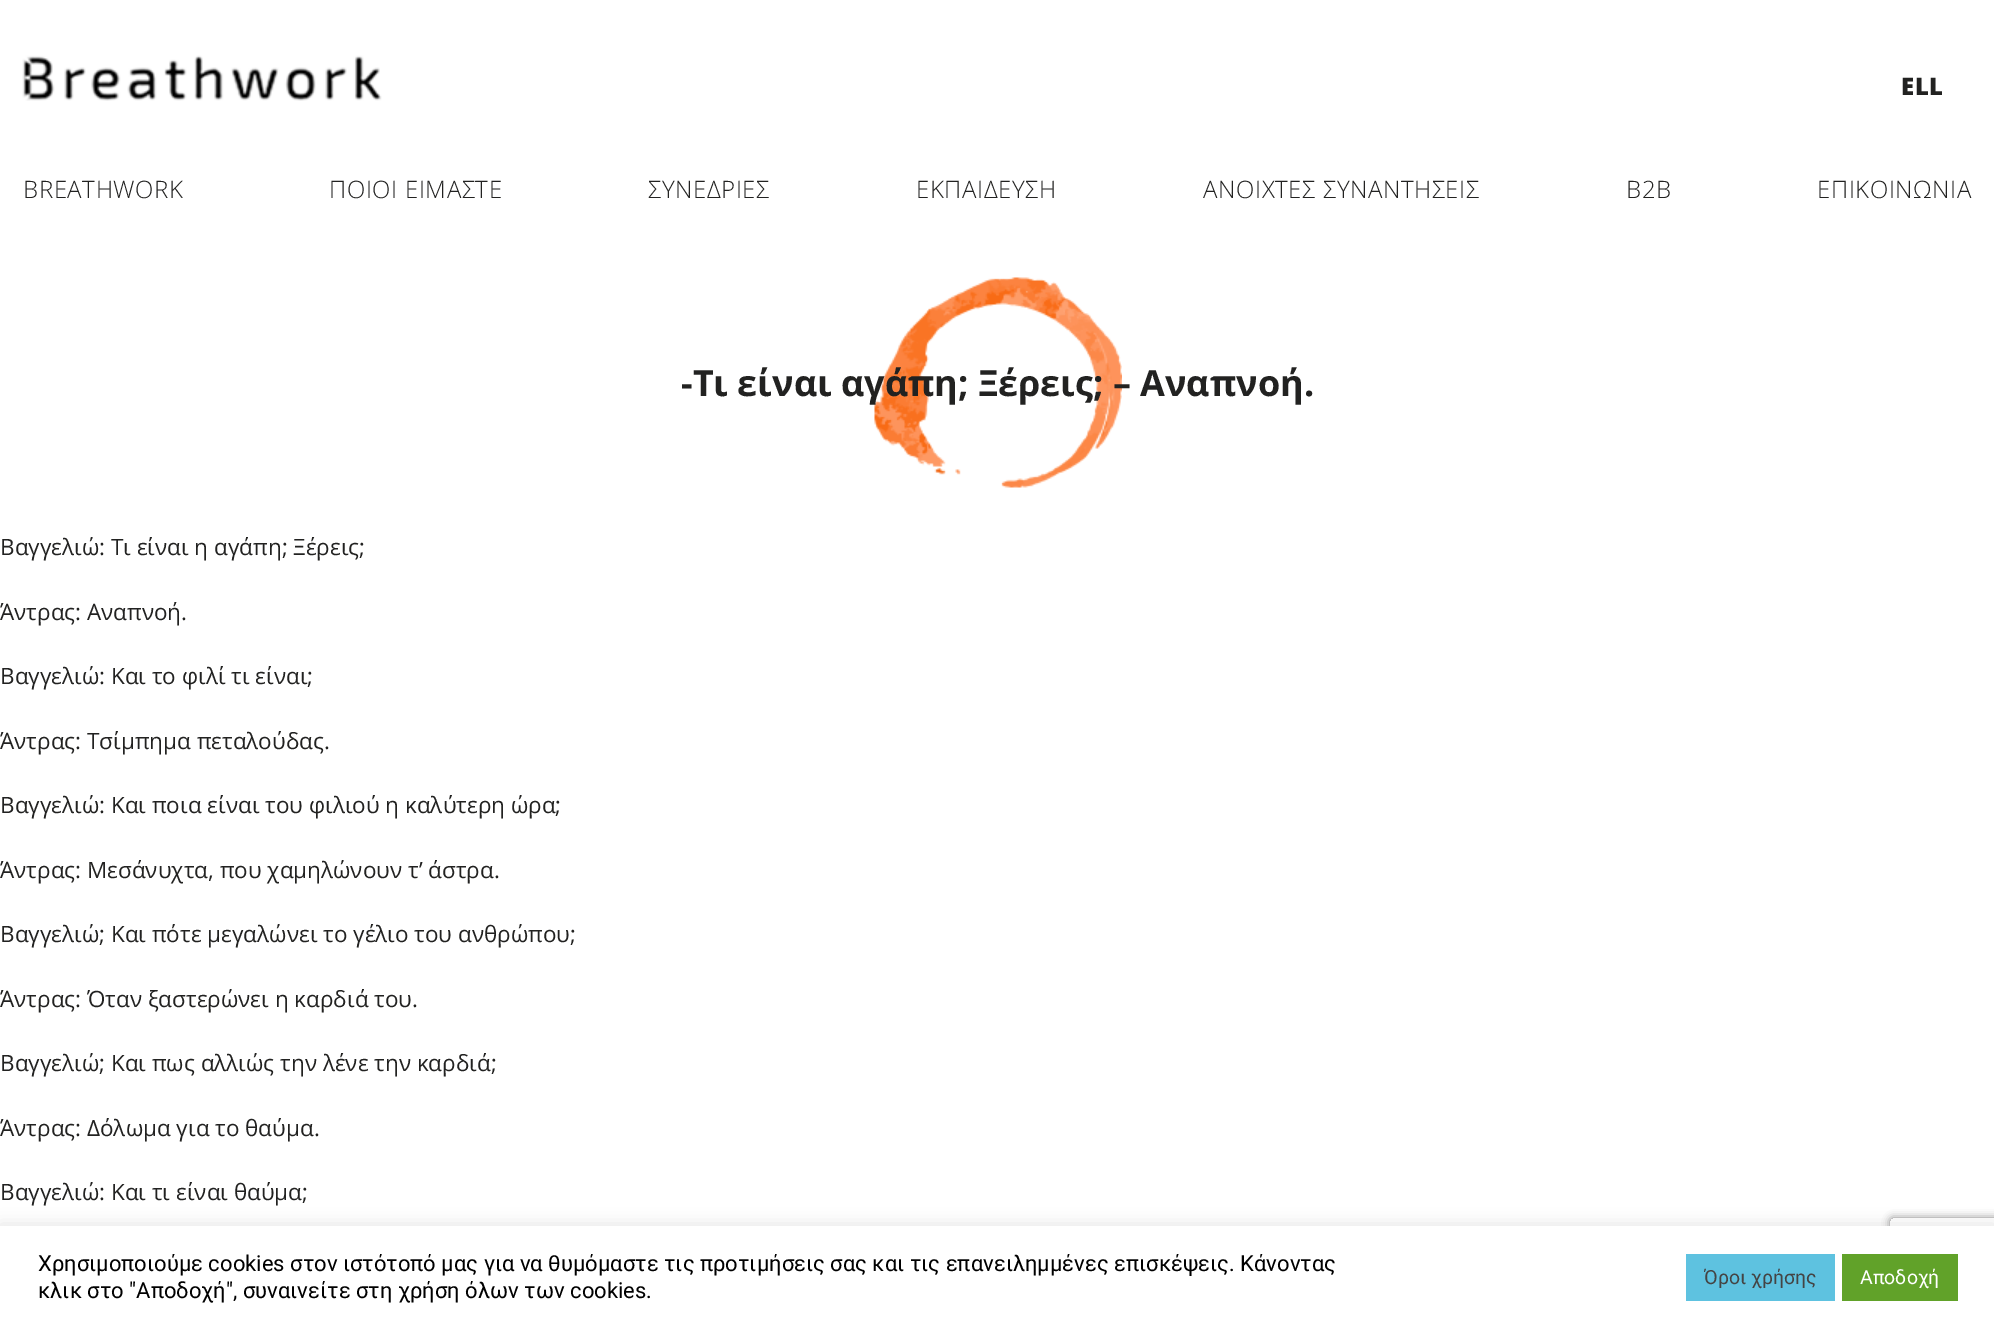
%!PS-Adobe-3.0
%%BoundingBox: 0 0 1994 1329
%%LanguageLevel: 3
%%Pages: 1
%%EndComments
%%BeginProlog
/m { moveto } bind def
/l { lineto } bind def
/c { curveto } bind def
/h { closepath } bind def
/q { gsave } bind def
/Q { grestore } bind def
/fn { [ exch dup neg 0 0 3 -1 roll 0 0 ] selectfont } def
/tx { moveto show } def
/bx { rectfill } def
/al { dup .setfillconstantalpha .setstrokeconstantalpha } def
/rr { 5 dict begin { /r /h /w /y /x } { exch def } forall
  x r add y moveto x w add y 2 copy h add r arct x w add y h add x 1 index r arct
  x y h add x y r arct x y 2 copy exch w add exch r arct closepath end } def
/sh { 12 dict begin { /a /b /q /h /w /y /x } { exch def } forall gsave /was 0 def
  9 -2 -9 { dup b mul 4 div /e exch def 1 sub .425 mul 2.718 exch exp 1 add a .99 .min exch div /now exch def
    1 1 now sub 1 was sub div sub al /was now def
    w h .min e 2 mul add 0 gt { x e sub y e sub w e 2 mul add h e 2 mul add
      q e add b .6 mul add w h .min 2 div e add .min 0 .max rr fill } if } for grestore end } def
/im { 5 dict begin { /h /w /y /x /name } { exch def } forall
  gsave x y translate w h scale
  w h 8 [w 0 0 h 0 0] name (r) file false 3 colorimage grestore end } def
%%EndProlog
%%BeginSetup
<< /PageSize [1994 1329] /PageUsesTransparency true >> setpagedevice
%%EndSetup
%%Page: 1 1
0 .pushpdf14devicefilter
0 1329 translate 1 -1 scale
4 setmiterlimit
1 setgray
0 0 1994 1329 bx
(image0.raw) 22 55 360 46 im
/OpenSans-ExtraBold 24 fn
0.133 0.133 0.129 setrgbcolor
1901 95 m 0.6 0 (ELL) ashow
/OpenSans-Light 24 fn
23 198 m 0.6 0 (BREATHWORK) ashow
329 198 m 0.6 0 (ΠΟΙΟΙ ΕΙΜΑΣΤΕ) ashow
648 198 m 0.6 0 (ΣΥΝΕΔΡΙΕΣ) ashow
916 198 m 0.6 0 (ΕΚΠΑΙΔΕΥΣΗ) ashow
1203 198 m 0.6 0 (ΑΝΟΙΧΤΕΣ ΣΥΝΑΝΤΗΣΕΙΣ) ashow
1626 198 m 0.6 0 (B2B) ashow
1817 198 m 0.6 0 (ΕΠΙΚΟΙΝΩΝΙΑ) ashow
(image1.raw) 874 277 248 211 im
/OpenSans-Bold 36 fn
(-Τι είναι αγάπη; Ξέρεις; – Αναπνοή.) 681 396 tx
/OpenSans-Regular 22.5 fn
(Βαγγελιώ: Τι είναι η αγάπη; Ξέρεις;) 0 555 tx
(Άντρας: Αναπνοή.) 0 620 tx
(Βαγγελιώ: Και το φιλί τι είναι;) 0 684 tx
(Άντρας: Τσίμπημα πεταλούδας.) 0 749 tx
(Βαγγελιώ: Και ποια είναι του φιλιού η καλύτερη ώρα;) 0 813 tx
(Άντρας: Μεσάνυχτα, που χαμηλώνουν τ’ άστρα.) 0 878 tx
(Βαγγελιώ; Και πότε μεγαλώνει το γέλιο του ανθρώπου;) 0 942 tx
(Άντρας: Όταν ξαστερώνει η καρδιά του.) 0 1007 tx
(Βαγγελιώ; Και πως αλλιώς την λένε την καρδιά;) 0 1071 tx
(Άντρας: Δόλωμα για το θαύμα.) 0 1136 tx
(Βαγγελιώ: Και τι είναι θαύμα;) 0 1200 tx
q
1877 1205 m 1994 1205 l 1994 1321 l 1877 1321 l h 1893 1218 m 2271 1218 l 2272.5 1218 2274 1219.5 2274 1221 c 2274 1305 l 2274 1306.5 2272.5 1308 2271 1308 c 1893 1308 l 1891.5 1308 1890 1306.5 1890 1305 c 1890 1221 l 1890 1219.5 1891.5 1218 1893 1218 c h eoclip newpath
0.502 setgray
1890 1218 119 90 3 4 1 sh
Q
0.675 0.671 0.671 setrgbcolor
0 1224 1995 104 0 7.5 0.3 sh
1 setgray
0 1226 1994 103 bx
/Roboto-Regular 22 fn
0 setgray
(Χρησιμοποιούμε cookies στον ιστότοπό μας για να θυμόμαστε τις προτιμήσεις σας και τις επανειλημμένες επισκέψεις. Κάνοντας) 38 1271 tx
(κλικ στο "Αποδοχή", συναινείτε στη χρήση όλων των cookies.) 38 1298 tx
0.369 0.761 0.878 setrgbcolor
1686 1254 149 47 bx
/Roboto-Regular 19.5 fn
0.267 setgray
(Όροι χρήσης) 1704 1284 tx
0.38 0.635 0.161 setrgbcolor
1842 1254 116 47 bx
1 setgray
(Αποδοχή) 1860 1284 tx
.poppdf14devicefilter showpage
%%EOF
